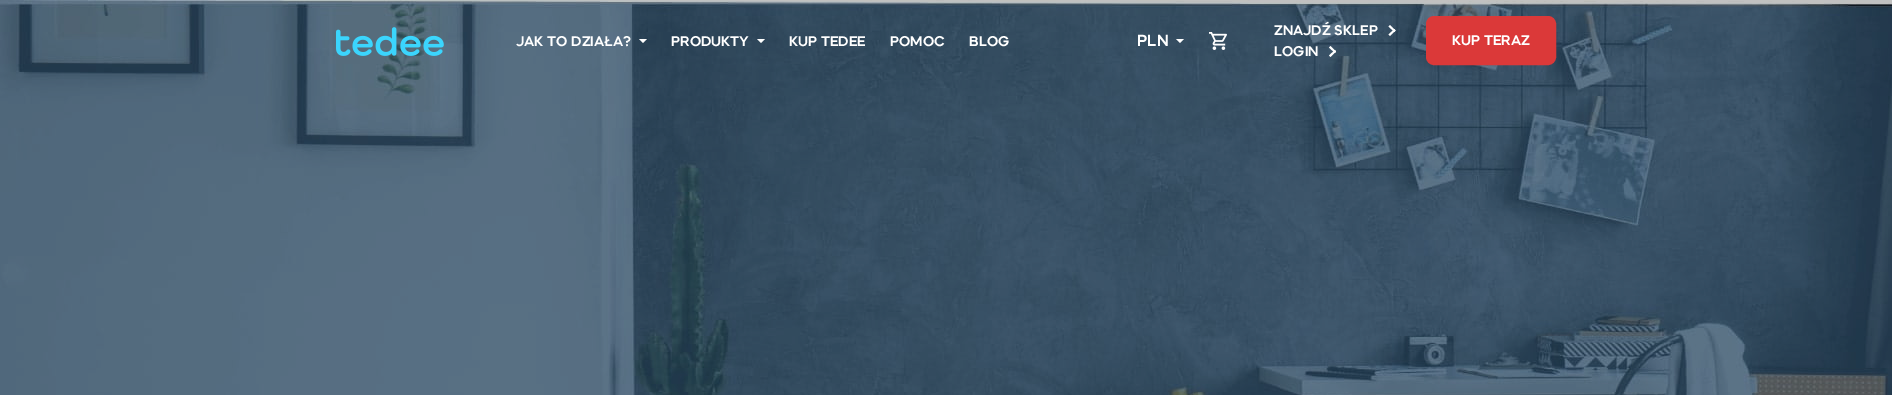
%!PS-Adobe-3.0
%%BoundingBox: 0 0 1892 395
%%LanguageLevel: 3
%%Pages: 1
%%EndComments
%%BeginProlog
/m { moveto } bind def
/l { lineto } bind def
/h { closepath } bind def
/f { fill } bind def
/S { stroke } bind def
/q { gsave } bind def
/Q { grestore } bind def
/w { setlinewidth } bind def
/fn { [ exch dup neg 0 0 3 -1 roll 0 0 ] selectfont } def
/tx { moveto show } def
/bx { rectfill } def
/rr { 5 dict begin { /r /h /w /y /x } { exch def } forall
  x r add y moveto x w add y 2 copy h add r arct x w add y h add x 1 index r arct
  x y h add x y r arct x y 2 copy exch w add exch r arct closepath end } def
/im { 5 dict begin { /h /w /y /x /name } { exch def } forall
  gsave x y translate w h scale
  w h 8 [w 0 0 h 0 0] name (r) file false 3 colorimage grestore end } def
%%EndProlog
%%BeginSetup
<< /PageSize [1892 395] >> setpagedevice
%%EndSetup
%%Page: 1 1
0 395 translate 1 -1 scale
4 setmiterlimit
1 setgray
0 0 1892 395 bx
(image0.raw) 0 0 1892 395 im
(image1.raw) 336 27 108 29 im
/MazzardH-SemiBold 14 fn
(JAK TO DZIAŁA?) 516 46 tx
639 39 m 647 39 l 643 43 l h f
(PRODUKTY) 671 46 tx
757 39 m 765 39 l 761 43 l h f
(KUP TEDEE) 789 46 tx
(POMOC) 890 46 tx
(BLOG) 969 46 tx
/MazzardH-SemiBold 16 fn
(PLN) 1137 46 tx
1176 39 m 1184 39 l 1180 43 l h f
(image2.raw) 1209 32 18 18 im
/MazzardH-SemiBold 14 fn
(ZNAJDŹ SKLEP) 1274 35 tx
1390 25 m 1395.5 30.5 l 1394.5 32 l 1388.5 26.5 l h f
1394.5 29 m 1395.5 30.5 l 1390 36 l 1388.5 34.5 l h f
(LOGIN) 1274 56 tx
1330.5 46 m 1336 51.5 l 1335 53 l 1329 47.5 l h f
1335 50 m 1336 51.5 l 1330.5 57 l 1329 55.5 l h f
0.859 0.224 0.224 setrgbcolor
1427 17 128 47 7 rr q f Q
2 w
S
1 setgray
(KUP TERAZ) 1452 45 tx
showpage
%%EOF
